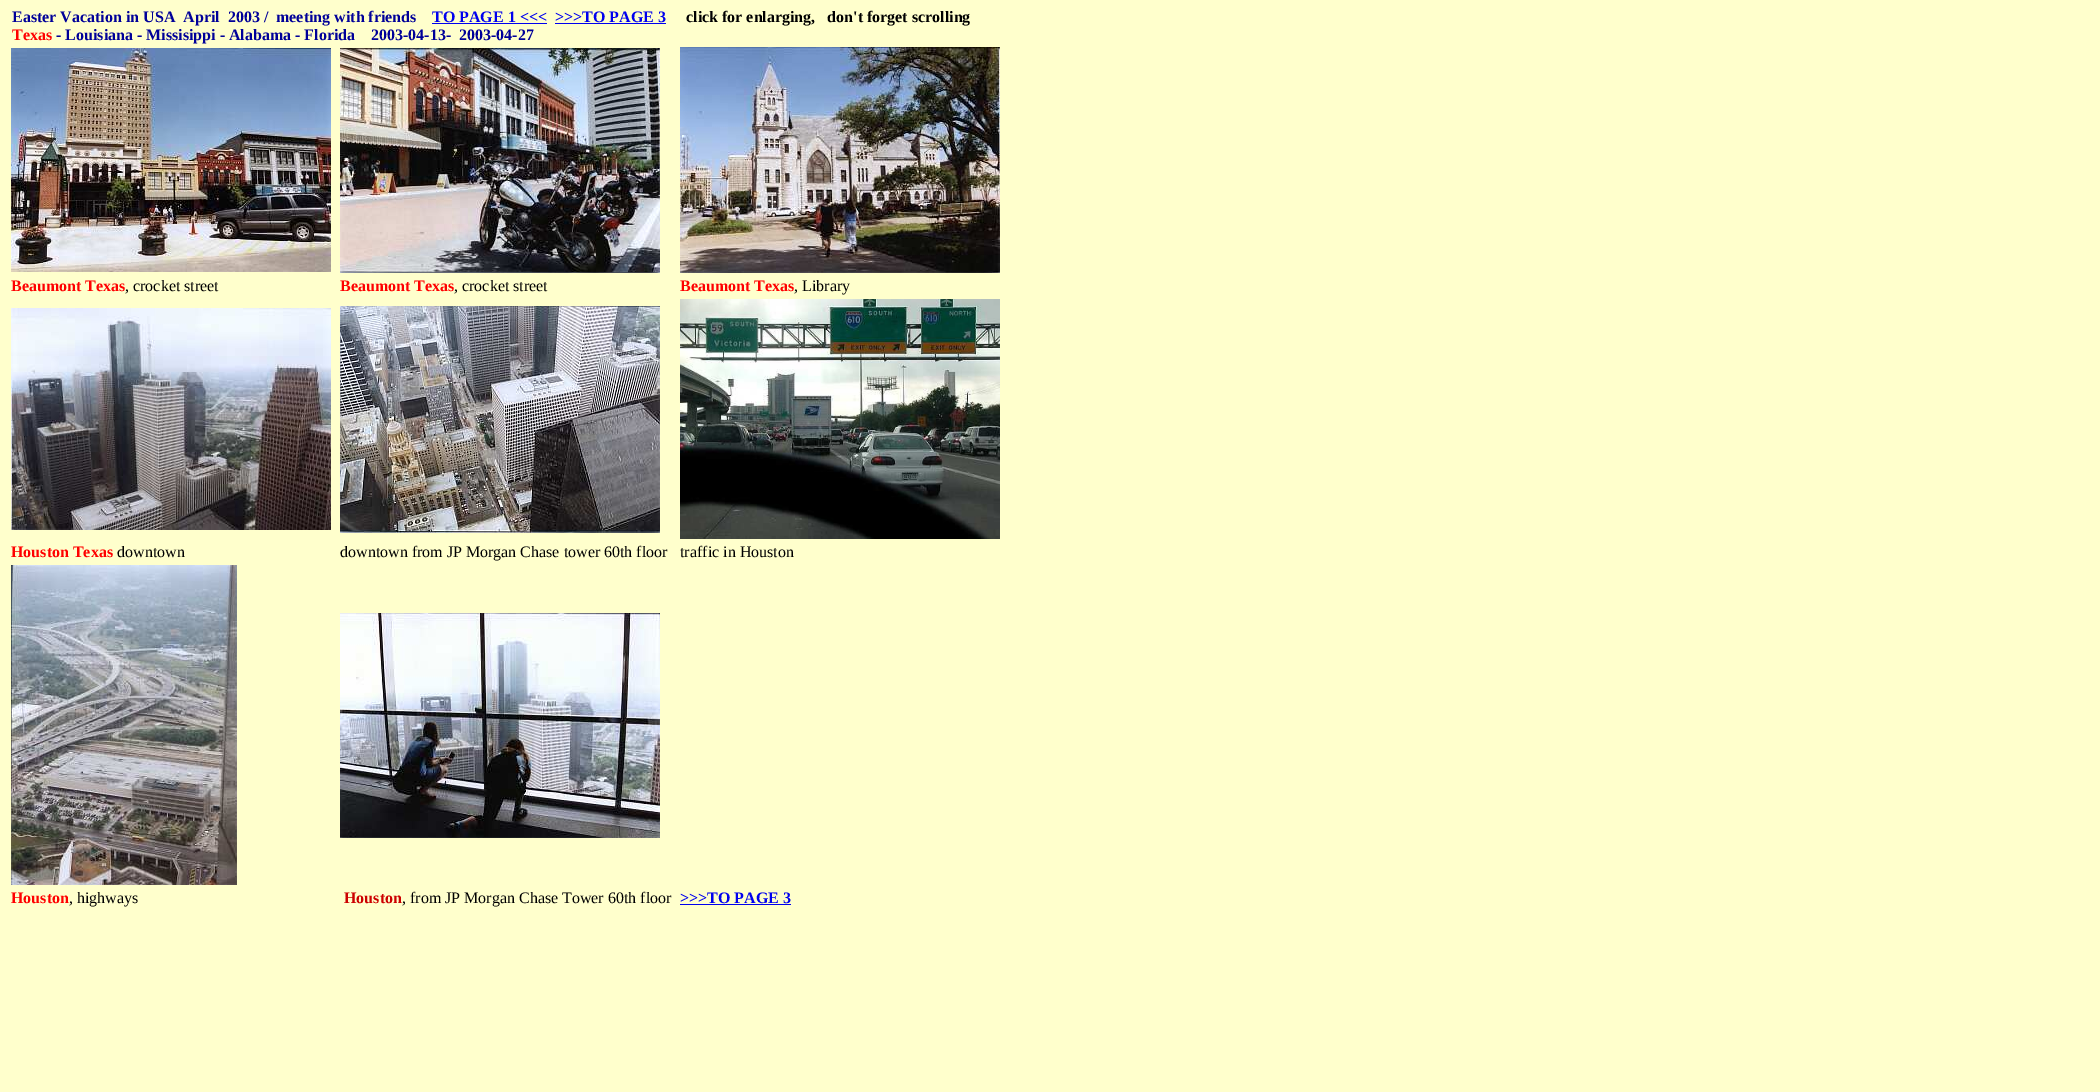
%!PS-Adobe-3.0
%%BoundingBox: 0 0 2100 1092
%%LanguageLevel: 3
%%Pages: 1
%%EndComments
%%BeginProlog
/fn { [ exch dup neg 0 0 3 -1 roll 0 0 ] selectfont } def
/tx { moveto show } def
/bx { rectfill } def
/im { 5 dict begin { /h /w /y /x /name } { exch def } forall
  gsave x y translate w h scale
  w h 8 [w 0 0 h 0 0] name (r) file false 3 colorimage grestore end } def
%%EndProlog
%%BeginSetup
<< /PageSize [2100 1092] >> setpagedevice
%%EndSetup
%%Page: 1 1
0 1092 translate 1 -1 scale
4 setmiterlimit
1 1 0.8 setrgbcolor
0 0 2100 1092 bx
/LiberationSerif-Bold 16 fn
0 0 0.6 setrgbcolor
(Easter Vacation in USA  April  2003 /) 12 22 tx
(meeting with friends) 276 22 tx
0 0 0.933 setrgbcolor
(TO PAGE 1 <<<) 432 22 tx
432 23 115 1 bx
(>>>TO PAGE 3) 555 22 tx
555 23 111 1 bx
0 setgray
(click for enlarging,   don't forget scrolling) 686 22 tx
1 0 0 setrgbcolor
(Texas) 12 40 tx
0 0 0.6 setrgbcolor
(- Louisiana - Missisippi - Alabama - Florida    2003-04-13-  2003-04-27) 56 40 tx
(image0.raw) 11 48 320 224 im
(image1.raw) 340 48 320 225 im
(image2.raw) 680 47 320 226 im
1 0 0 setrgbcolor
(Beaumont Texas) 11 291 tx
/LiberationSerif-Regular 16 fn
0 setgray
(, crocket street) 125 291 tx
/LiberationSerif-Bold 16 fn
1 0 0 setrgbcolor
(Beaumont Texas) 340 291 tx
/LiberationSerif-Regular 16 fn
0 setgray
(, crocket street) 454 291 tx
/LiberationSerif-Bold 16 fn
1 0 0 setrgbcolor
(Beaumont Texas) 680 291 tx
/LiberationSerif-Regular 16 fn
0 setgray
(, Library) 794 291 tx
(image3.raw) 11 308 320 222 im
(image4.raw) 340 306 320 227 im
(image5.raw) 680 299 320 240 im
/LiberationSerif-Bold 16 fn
1 0 0 setrgbcolor
(Houston Texas) 11 557 tx
/LiberationSerif-Regular 16 fn
0 setgray
(downtown) 117 557 tx
(downtown from JP Morgan Chase tower 60th floor) 340 557 tx
(traffic in Houston) 680 557 tx
(image6.raw) 11 565 226 320 im
(image7.raw) 340 613 320 225 im
/LiberationSerif-Bold 16 fn
1 0 0 setrgbcolor
(Houston) 11 903 tx
/LiberationSerif-Regular 16 fn
0 setgray
(, highways) 69 903 tx
/LiberationSerif-Bold 16 fn
0.8 0 0 setrgbcolor
(Houston) 344 903 tx
/LiberationSerif-Regular 16 fn
0 setgray
(, from JP Morgan Chase Tower 60th floor) 402 903 tx
/LiberationSerif-Bold 16 fn
0 0 0.933 setrgbcolor
(>>>TO PAGE 3) 680 903 tx
680 904 111 1 bx
showpage
%%EOF
